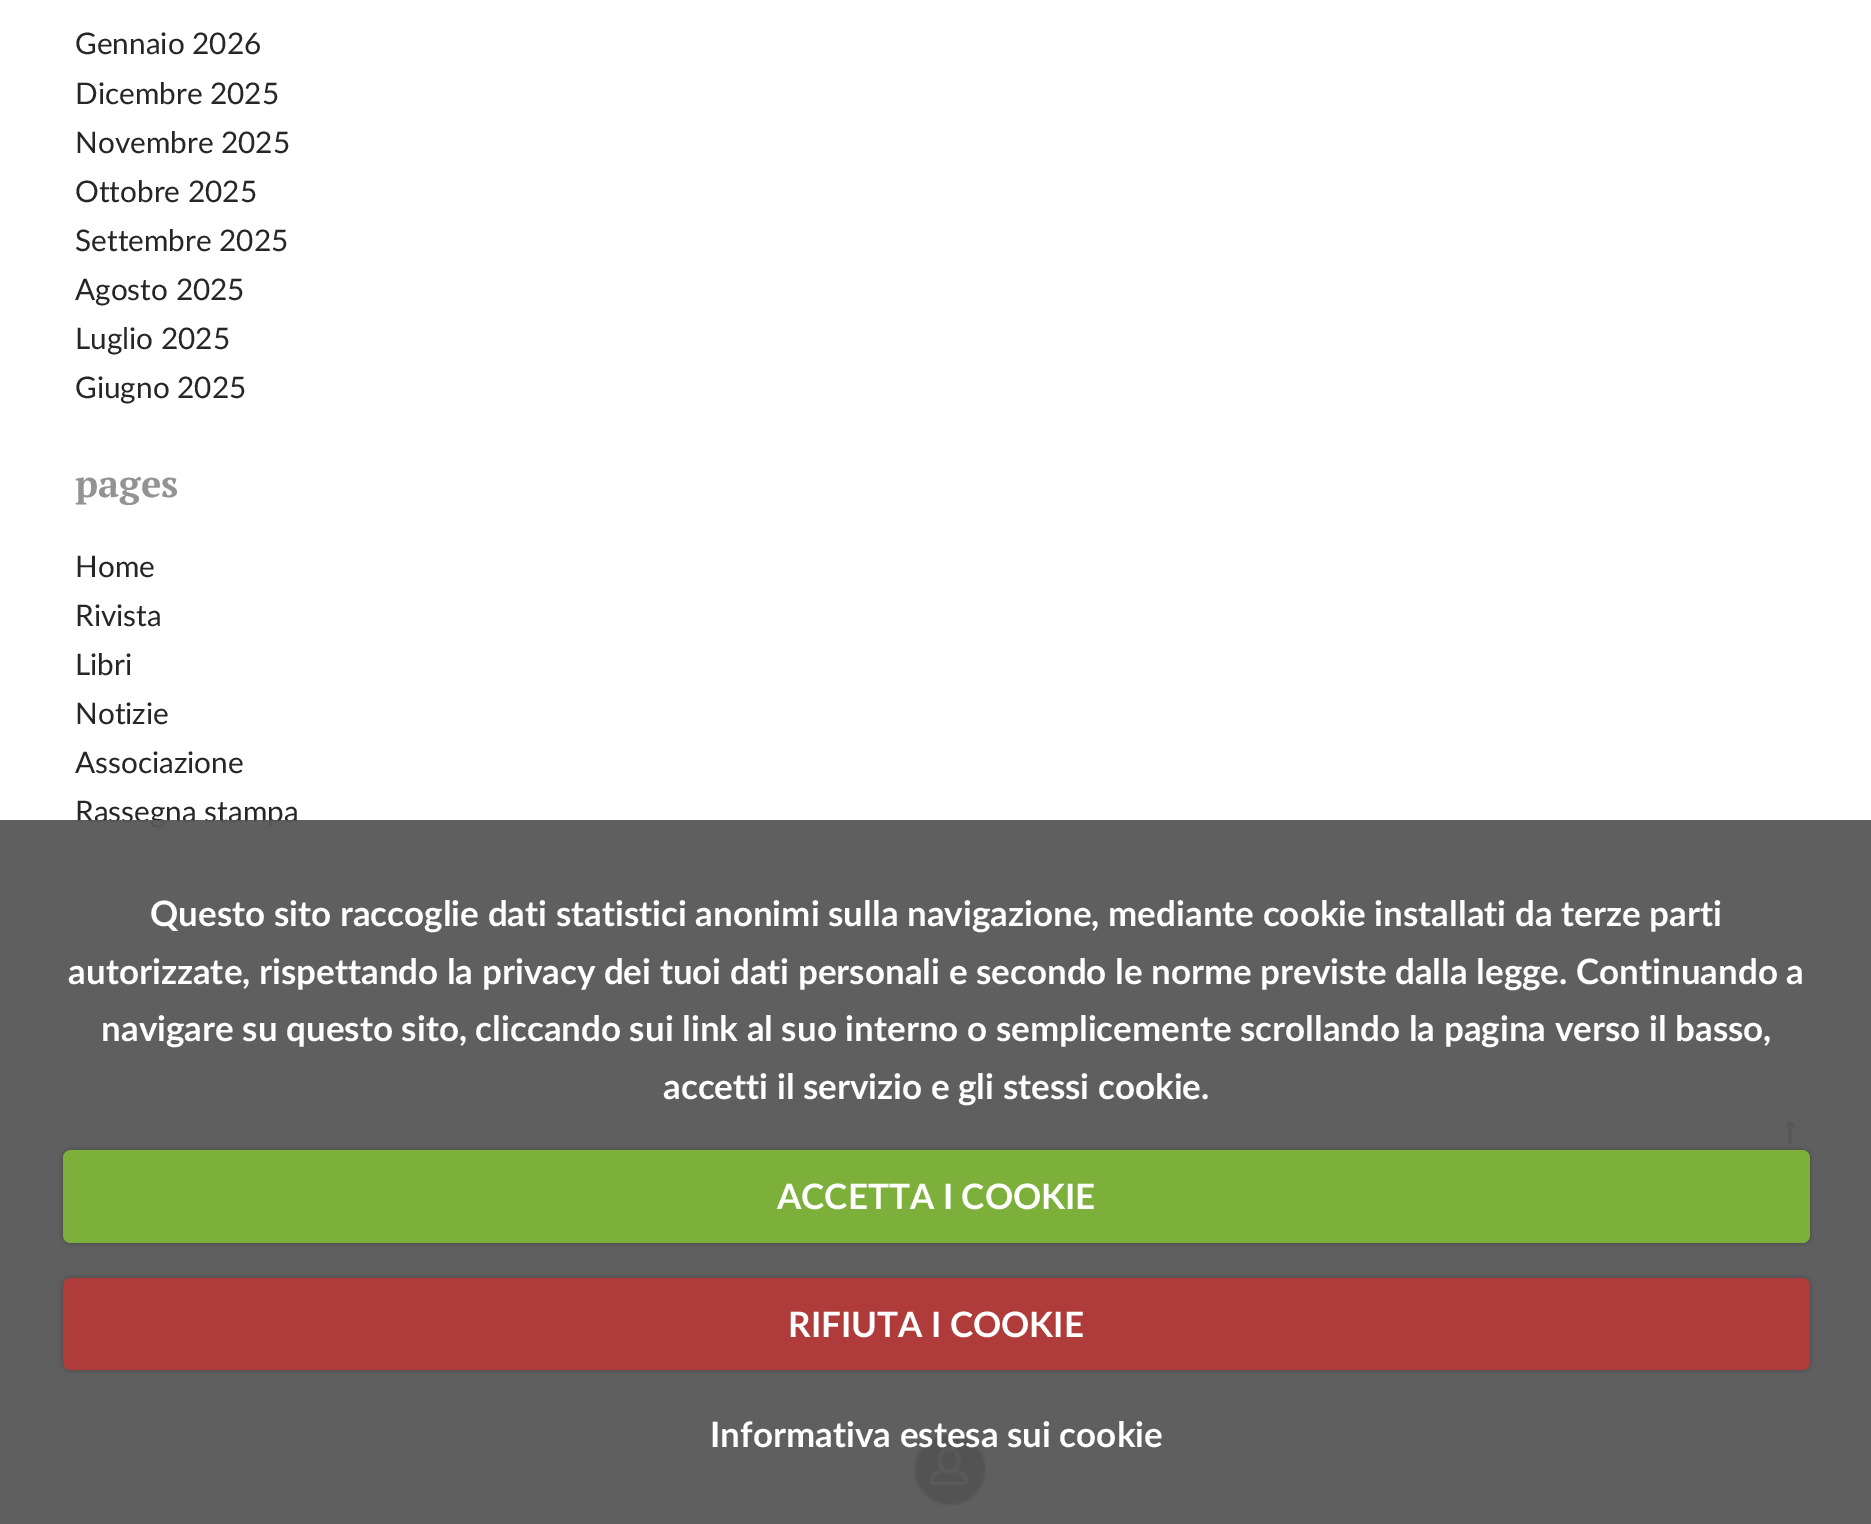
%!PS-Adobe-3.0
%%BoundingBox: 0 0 1871 1524
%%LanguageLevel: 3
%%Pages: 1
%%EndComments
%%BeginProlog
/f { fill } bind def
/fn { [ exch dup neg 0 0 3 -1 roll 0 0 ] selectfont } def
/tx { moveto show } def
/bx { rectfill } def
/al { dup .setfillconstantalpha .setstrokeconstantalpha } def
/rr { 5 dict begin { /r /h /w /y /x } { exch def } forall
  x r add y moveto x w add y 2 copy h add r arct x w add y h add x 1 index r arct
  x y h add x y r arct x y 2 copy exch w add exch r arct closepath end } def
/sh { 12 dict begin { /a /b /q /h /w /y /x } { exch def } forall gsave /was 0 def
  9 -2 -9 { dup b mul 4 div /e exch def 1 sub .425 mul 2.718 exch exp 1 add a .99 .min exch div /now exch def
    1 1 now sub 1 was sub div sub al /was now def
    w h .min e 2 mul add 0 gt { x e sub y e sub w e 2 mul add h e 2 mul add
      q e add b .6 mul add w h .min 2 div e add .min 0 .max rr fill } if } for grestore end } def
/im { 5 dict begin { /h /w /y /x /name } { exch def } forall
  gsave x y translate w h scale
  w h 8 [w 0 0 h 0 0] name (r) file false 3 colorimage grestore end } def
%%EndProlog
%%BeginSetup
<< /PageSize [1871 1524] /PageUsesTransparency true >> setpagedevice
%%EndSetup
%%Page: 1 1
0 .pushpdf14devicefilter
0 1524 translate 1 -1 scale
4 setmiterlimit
1 setgray
0 0 1871 1524 bx
0.922 setgray
75 1255 1723 3 bx
/Lato-Regular 29.75 fn
0.149 setgray
(Gennaio 2026) 75 54 tx
(Dicembre 2025) 75 104 tx
(Novembre 2025) 75 153 tx
(Ottobre 2025) 75 202 tx
(Settembre 2025) 75 251 tx
(Agosto 2025) 75 300 tx
(Luglio 2025) 75 349 tx
(Giugno 2025) 75 398 tx
/PTSerif-Bold 38 fn
0.576 setgray
(pages) 75 497 tx
/Lato-Regular 29.75 fn
0.149 setgray
(Home) 75 577 tx
(Rivista) 75 626 tx
(Libri) 75 675 tx
(Notizie) 75 724 tx
(Associazione) 75 773 tx
(Rassegna stampa) 75 822 tx
(image0.raw) 1785 1120 10 24 im
(image1.raw) 914 1433 72 73 im
0.95 al
0.337 setgray
0 820 1871 704 bx
/Lato-Bold 35 fn
1 al
1 setgray
(Questo sito raccoglie dati statistici anonimi sulla navigazione, mediante cookie installati da terze parti) 150 926 tx
(autorizzate, rispettando la privacy dei tuoi dati personali e secondo le norme previste dalla legge. Continuando a) 68 984 tx
(navigare su questo sito, cliccando sui link al suo interno o semplicemente scrollando la pagina verso il basso,) 101 1041 tx
(accetti il servizio e gli stessi cookie.) 663 1099 tx
0 setgray
63 1150 1747 93 8 2.5 0.25 sh
0.49 0.686 0.231 setrgbcolor
63 1150 1747 93 8 rr f
1 setgray
(ACCETTA I COOKIE) 777 1209 tx
0 setgray
63 1278 1747 92 8 2.5 0.25 sh
0.686 0.231 0.231 setrgbcolor
63 1278 1747 92 8 rr f
1 setgray
(RIFIUTA I COOKIE) 788 1337 tx
(Informativa estesa sui cookie) 710 1447 tx
.poppdf14devicefilter showpage
%%EOF
